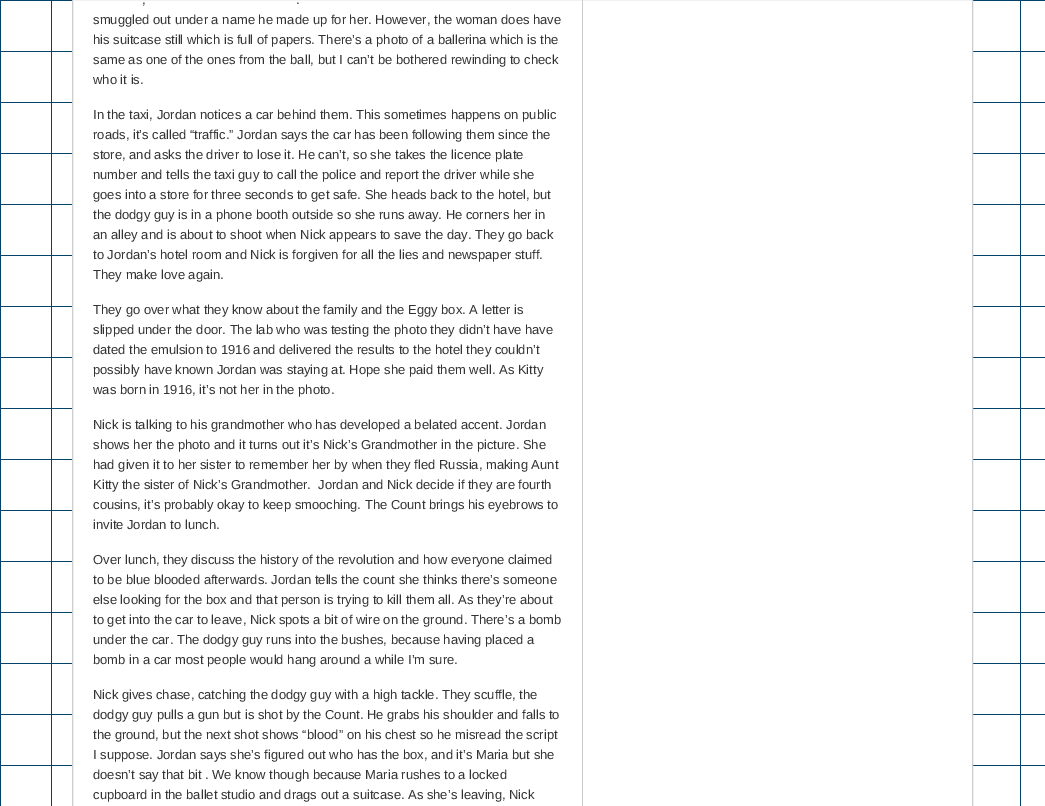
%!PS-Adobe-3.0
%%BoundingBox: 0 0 1045 806
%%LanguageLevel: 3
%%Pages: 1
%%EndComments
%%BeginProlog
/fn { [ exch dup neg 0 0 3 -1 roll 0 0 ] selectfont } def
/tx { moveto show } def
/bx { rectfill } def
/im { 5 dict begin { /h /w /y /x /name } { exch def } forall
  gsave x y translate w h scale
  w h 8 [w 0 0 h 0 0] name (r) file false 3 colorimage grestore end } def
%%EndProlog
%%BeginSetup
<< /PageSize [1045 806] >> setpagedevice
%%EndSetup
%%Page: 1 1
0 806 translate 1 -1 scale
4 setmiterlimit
0.012 0.263 0.416 setrgbcolor
0 0 1045 806 bx
(image0.raw) 1 1 1044 805 im
1 setgray
73 0 899 806 bx
0.8 setgray
582 0 1 806 bx
72.5 -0.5 900 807 rectstroke
/LiberationSans-Regular 13 fn
0.2 setgray
(,) 142 4 tx
(.) 296 4 tx
(smuggled out under a name he made up for her. However, the woman does have) 93 24 tx
(his suitcase still which is full of papers. There’s a photo of a ballerina which is the) 93 44 tx
(same as one of the ones from the ball, but I can’t be bothered rewinding to check) 93 64 tx
(who it is.) 93 84 tx
(In the taxi, Jordan notices a car behind them. This sometimes happens on public) 93 119 tx
(roads, it’s called “traffic.” Jordan says the car has been following them since the) 93 139 tx
(store, and asks the driver to lose it. He can’t, so she takes the licence plate) 93 159 tx
(number and tells the taxi guy to call the police and report the driver while she) 93 179 tx
(goes into a store for three seconds to get safe. She heads back to the hotel, but) 93 199 tx
(the dodgy guy is in a phone booth outside so she runs away. He corners her in) 93 219 tx
(an alley and is about to shoot when Nick appears to save the day. They go back) 93 239 tx
(to Jordan’s hotel room and Nick is forgiven for all the lies and newspaper stuff.) 93 259 tx
(They make love again.) 93 279 tx
(They go over what they know about the family and the Eggy box. A letter is) 93 314 tx
(slipped under the door. The lab who was testing the photo they didn’t have have) 93 334 tx
(dated the emulsion to 1916 and delivered the results to the hotel they couldn’t) 93 354 tx
(possibly have known Jordan was staying at. Hope she paid them well. As Kitty) 93 374 tx
(was born in 1916, it’s not her in the photo.) 93 394 tx
(Nick is talking to his grandmother who has developed a belated accent. Jordan) 93 429 tx
(shows her the photo and it turns out it’s Nick’s Grandmother in the picture. She) 93 449 tx
(had given it to her sister to remember her by when they fled Russia, making Aunt) 93 469 tx
(Kitty the sister of Nick’s Grandmother.  Jordan and Nick decide if they are fourth) 93 489 tx
(cousins, it’s probably okay to keep smooching. The Count brings his eyebrows to) 93 509 tx
(invite Jordan to lunch.) 93 529 tx
(Over lunch, they discuss the history of the revolution and how everyone claimed) 93 564 tx
(to be blue blooded afterwards. Jordan tells the count she thinks there’s someone) 93 584 tx
(else looking for the box and that person is trying to kill them all. As they’re about) 93 604 tx
(to get into the car to leave, Nick spots a bit of wire on the ground. There’s a bomb) 93 624 tx
(under the car. The dodgy guy runs into the bushes, because having placed a) 93 644 tx
(bomb in a car most people would hang around a while I’m sure.) 93 664 tx
(Nick gives chase, catching the dodgy guy with a high tackle. They scuffle, the) 93 699 tx
(dodgy guy pulls a gun but is shot by the Count. He grabs his shoulder and falls to) 93 719 tx
(the ground, but the next shot shows “blood” on his chest so he misread the script) 93 739 tx
(I suppose. Jordan says she’s figured out who has the box, and it’s Maria but she) 93 759 tx
(doesn’t say that bit . We know though because Maria rushes to a locked) 93 779 tx
(cupboard in the ballet studio and drags out a suitcase. As she’s leaving, Nick) 93 799 tx
showpage
%%EOF
